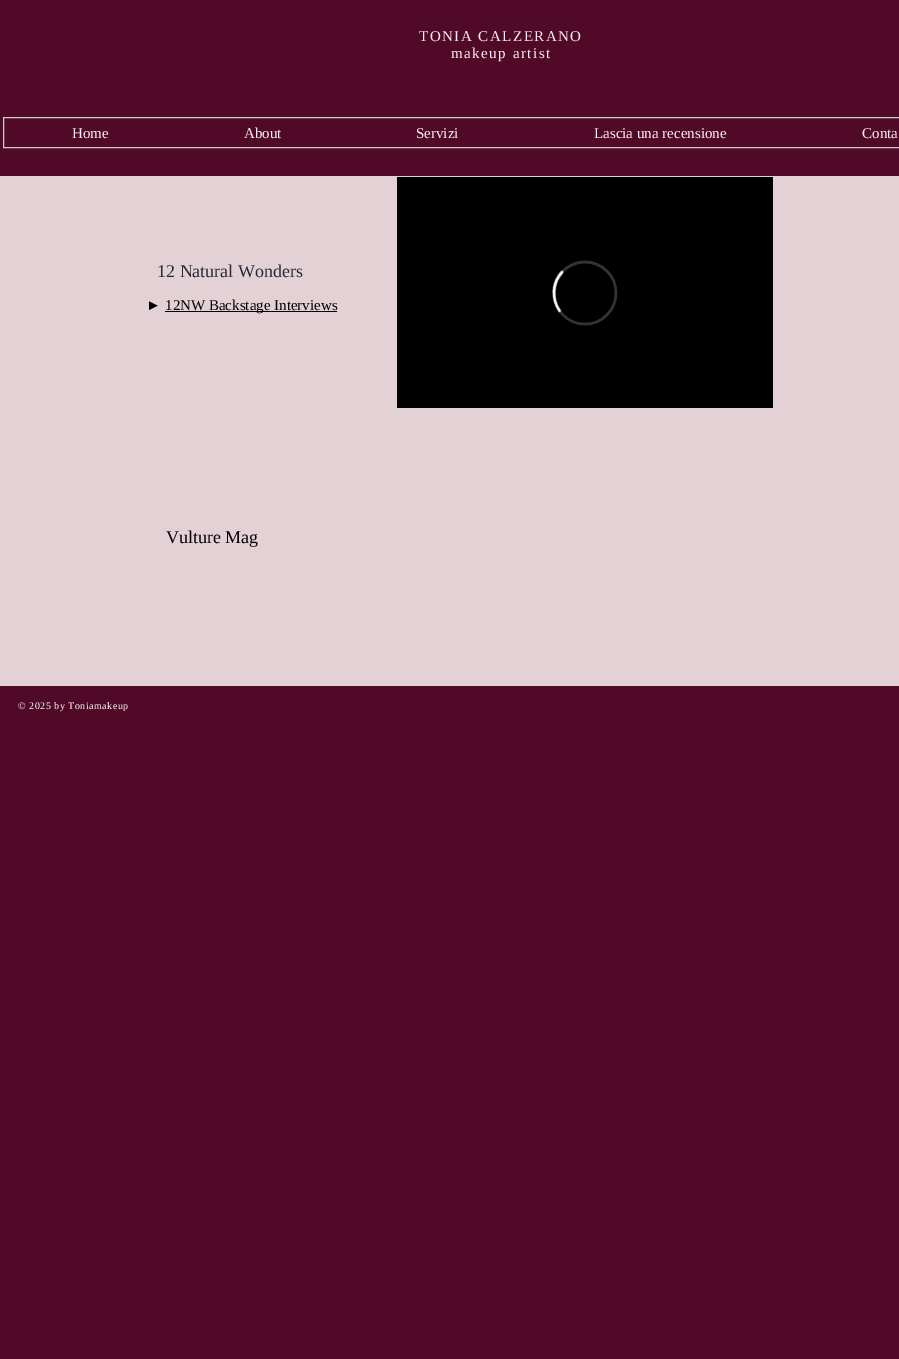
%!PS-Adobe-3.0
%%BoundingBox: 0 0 899 1359
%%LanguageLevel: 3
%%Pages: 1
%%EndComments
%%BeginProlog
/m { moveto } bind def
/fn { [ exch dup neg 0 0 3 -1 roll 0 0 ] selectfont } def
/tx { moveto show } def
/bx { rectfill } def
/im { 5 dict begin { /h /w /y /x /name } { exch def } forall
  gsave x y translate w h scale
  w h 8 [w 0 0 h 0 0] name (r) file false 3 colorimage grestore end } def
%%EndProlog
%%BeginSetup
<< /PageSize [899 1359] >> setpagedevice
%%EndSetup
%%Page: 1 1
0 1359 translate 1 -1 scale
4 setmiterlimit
0.314 0.035 0.149 setrgbcolor
0 0 899 1359 bx
/LiberationSerif-Regular 15 fn
1 0.941 0.925 setrgbcolor
419 41 m 1.5 0 (TONIA CALZERANO) ashow
451 58 m 1.5 0 (makeup artist) ashow
0.8 setgray
3.5 117.5 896 30 rectstroke
1 0.941 0.925 setrgbcolor
(Home) 72 138 tx
(About) 244 138 tx
(Servizi) 416 138 tx
(Lascia una recensione) 594 138 tx
(Conta) 862 138 tx
0.894 0.82 0.835 setrgbcolor
0 176 899 510 bx
/LiberationSerif-Regular 18 fn
0.157 0.161 0.212 setrgbcolor
(12 Natural Wonders) 157 277 tx
(image0.raw) 397 177 376 231 im
/LiberationSerif-Regular 15 fn
0 setgray
(►) 146 310 tx
165 311 172 1 bx
(12NW Backstage Interviews) 165 310 tx
/LiberationSerif-Regular 18 fn
(Vulture Mag) 166 543 tx
/LiberationSerif-Regular 10 fn
1 setgray
18 709 m 0.5 0 (© 2025 by Toniamakeup) ashow
showpage
%%EOF
